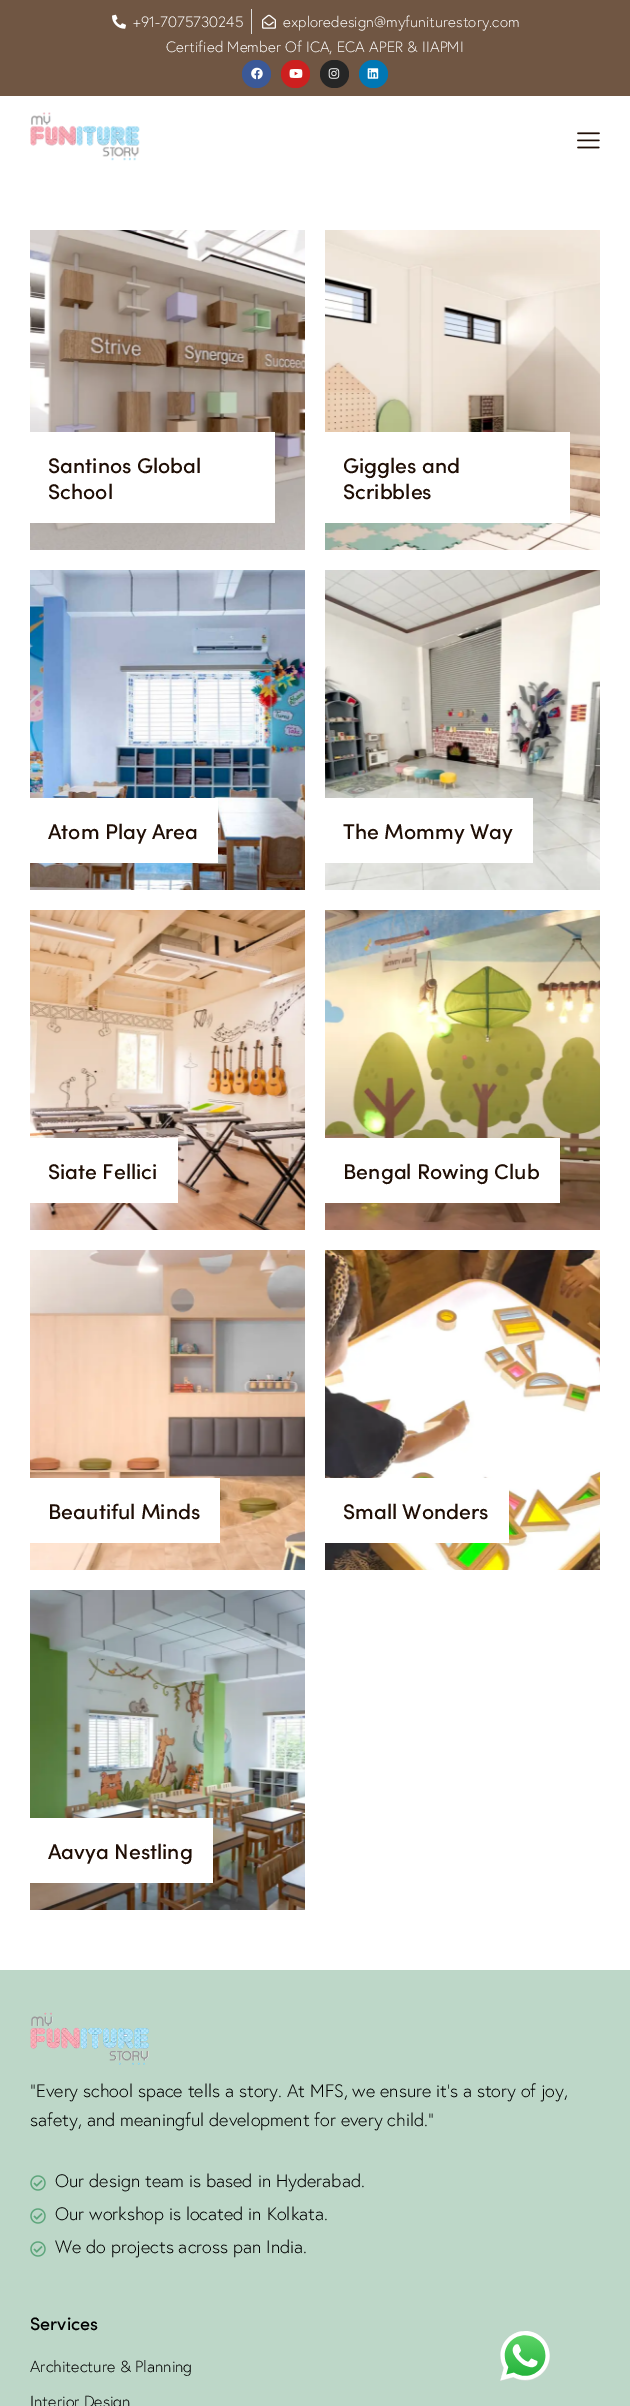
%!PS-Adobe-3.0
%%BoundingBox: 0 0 630 2406
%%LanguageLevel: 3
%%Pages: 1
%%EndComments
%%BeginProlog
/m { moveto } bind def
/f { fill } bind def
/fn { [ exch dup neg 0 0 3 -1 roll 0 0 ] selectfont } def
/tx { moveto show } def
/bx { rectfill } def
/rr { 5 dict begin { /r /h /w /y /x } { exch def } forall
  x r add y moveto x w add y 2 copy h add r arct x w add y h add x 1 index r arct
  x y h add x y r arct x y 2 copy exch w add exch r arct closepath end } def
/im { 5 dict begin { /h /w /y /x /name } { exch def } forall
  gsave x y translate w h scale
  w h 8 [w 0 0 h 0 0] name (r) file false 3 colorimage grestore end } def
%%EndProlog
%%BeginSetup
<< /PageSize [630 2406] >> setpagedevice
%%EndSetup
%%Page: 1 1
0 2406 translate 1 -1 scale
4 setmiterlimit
1 setgray
0 0 630 2406 bx
0.439 0.337 0.263 setrgbcolor
0 0 630 96 bx
(image0.raw) 112 14 14 15 im
/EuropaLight-Light 15 fn
1 setgray
133 27 m 0.1 0 (+91-7075730245) ashow
0.867 setgray
251 9 1 25 bx
(image1.raw) 262 14 14 15 im
1 setgray
283 27 m 0.1 0 (exploredesign@myfuniturestory.com) ashow
166 52 m 0.1 0 (Certified Member Of ICA, ECA APER & IIAPMI) ashow
0.231 0.349 0.596 setrgbcolor
242 60 29 28 14 rr f
(image2.raw) 251 67 12 13 im
0.804 0.125 0.122 setrgbcolor
281 60 29 28 14 rr f
(image3.raw) 289 69 14 9 im
0.149 setgray
320 60 29 28 14 rr f
(image4.raw) 328 68 12 11 im
0 0.467 0.71 setrgbcolor
359 60 29 28 14 rr f
(image5.raw) 367 68 12 11 im
(image6.raw) 30 112 110 49 im
(image7.raw) 577 132 23 17 im
(image8.raw) 30 230 275 320 im
1 setgray
30 432 245 91 bx
/Sofia-Medium 21.25 fn
0.122 0.055 0.02 setrgbcolor
(Santinos Global) 48 473 tx
(School) 48 499 tx
(image9.raw) 325 230 275 320 im
1 setgray
325 432 245 91 bx
0.122 0.055 0.02 setrgbcolor
(Giggles and) 343 473 tx
(Scribbles) 343 499 tx
(image10.raw) 30 570 275 320 im
1 setgray
30 798 188 65 bx
0.122 0.055 0.02 setrgbcolor
(Atom Play Area) 48 839 tx
(image11.raw) 325 570 275 320 im
1 setgray
325 798 208 65 bx
0.122 0.055 0.02 setrgbcolor
(The Mommy Way) 343 839 tx
(image12.raw) 30 910 275 320 im
1 setgray
30 1138 148 65 bx
0.122 0.055 0.02 setrgbcolor
(Siate Fellici) 48 1179 tx
(image13.raw) 325 910 275 320 im
1 setgray
325 1138 235 65 bx
0.122 0.055 0.02 setrgbcolor
(Bengal Rowing Club) 343 1179 tx
(image14.raw) 30 1250 275 320 im
1 setgray
30 1478 190 65 bx
0.122 0.055 0.02 setrgbcolor
(Beautiful Minds) 48 1519 tx
(image15.raw) 325 1250 275 320 im
1 setgray
325 1478 184 65 bx
0.122 0.055 0.02 setrgbcolor
(Small Wonders) 343 1519 tx
(image16.raw) 30 1590 275 320 im
1 setgray
30 1818 183 65 bx
0.122 0.055 0.02 setrgbcolor
(Aavya Nestling) 48 1859 tx
0.741 0.843 0.784 setrgbcolor
0 1970 630 436 bx
(image17.raw) 30 2012 119 53 im
/EuropaLight-Light 18 fn
0 setgray
("Every school space tells a story. At MFS, we ensure it's a story of joy,) 30 2097 tx
(safety, and meaningful development for every child.") 30 2126 tx
(image18.raw) 30 2175 16 16 im
(Our design team is based in Hyderabad.) 55 2187 tx
(image18.raw) 30 2208 16 16 im
(Our workshop is located in Kolkata.) 55 2220 tx
(image18.raw) 30 2241 16 16 im
(We do projects across pan India.) 55 2253 tx
/Sofia-Medium 18 fn
(Services) 30 2330 tx
/EuropaLight-Light 16 fn
(Architecture & Planning) 30 2372 tx
(Interior Design) 30 2407 tx
(image19.raw) 500 2331 50 50 im
showpage
%%EOF
